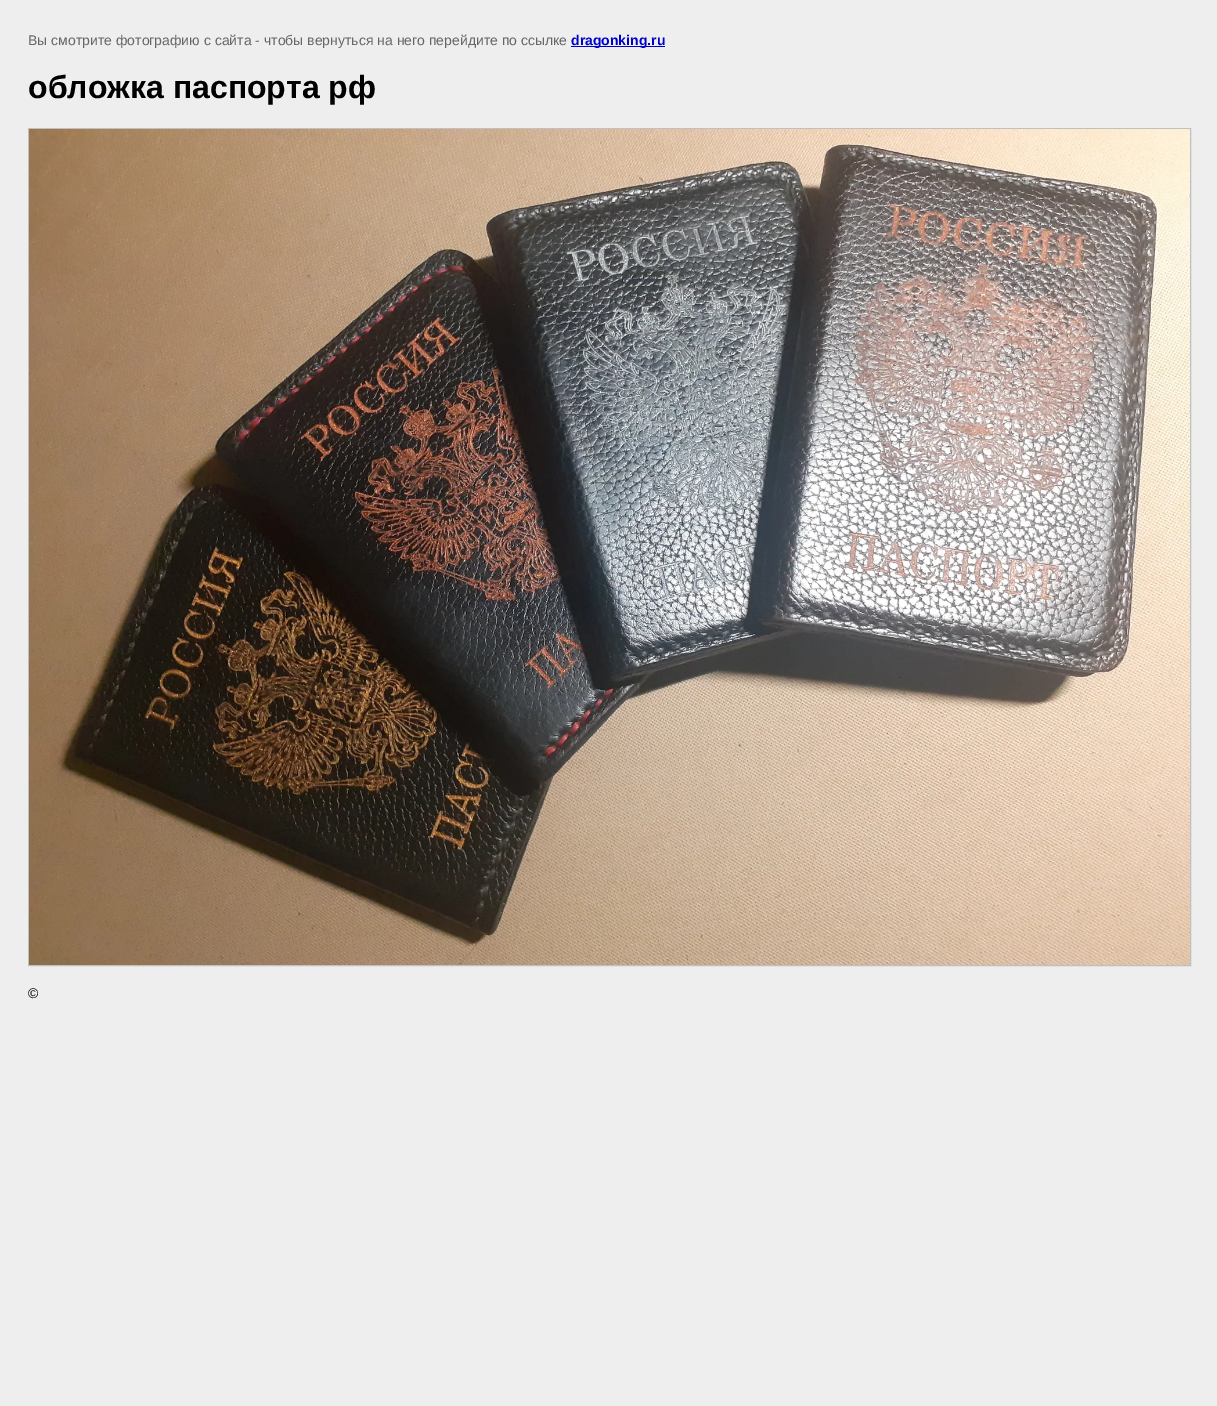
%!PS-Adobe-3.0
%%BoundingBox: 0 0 1217 1406
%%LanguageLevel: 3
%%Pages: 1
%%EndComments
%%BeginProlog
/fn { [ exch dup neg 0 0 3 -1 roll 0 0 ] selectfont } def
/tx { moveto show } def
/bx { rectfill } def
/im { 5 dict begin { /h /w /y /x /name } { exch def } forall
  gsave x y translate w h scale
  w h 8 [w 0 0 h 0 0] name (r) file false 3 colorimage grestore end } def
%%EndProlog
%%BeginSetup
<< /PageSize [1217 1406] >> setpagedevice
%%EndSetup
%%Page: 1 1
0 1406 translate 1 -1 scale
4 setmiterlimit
0.933 setgray
0 0 1217 1406 bx
/LiberationSans-Regular 14 fn
0.4 setgray
(Вы смотрите фотографию с сайта - чтобы вернуться на него перейдите по ссылке) 28 45 tx
0 0 0.8 setrgbcolor
571 46 94 1 bx
/LiberationSans-Bold 14 fn
(dragonking.ru) 571 45 tx
/LiberationSans-Bold 32 fn
0 setgray
(обложка паспорта рф) 28 98 tx
0.753 setgray
28.5 128.5 1162 837 rectstroke
(image0.raw) 29 129 1161 836 im
/LiberationSans-Regular 14 fn
0 setgray
(©) 28 998 tx
showpage
%%EOF
